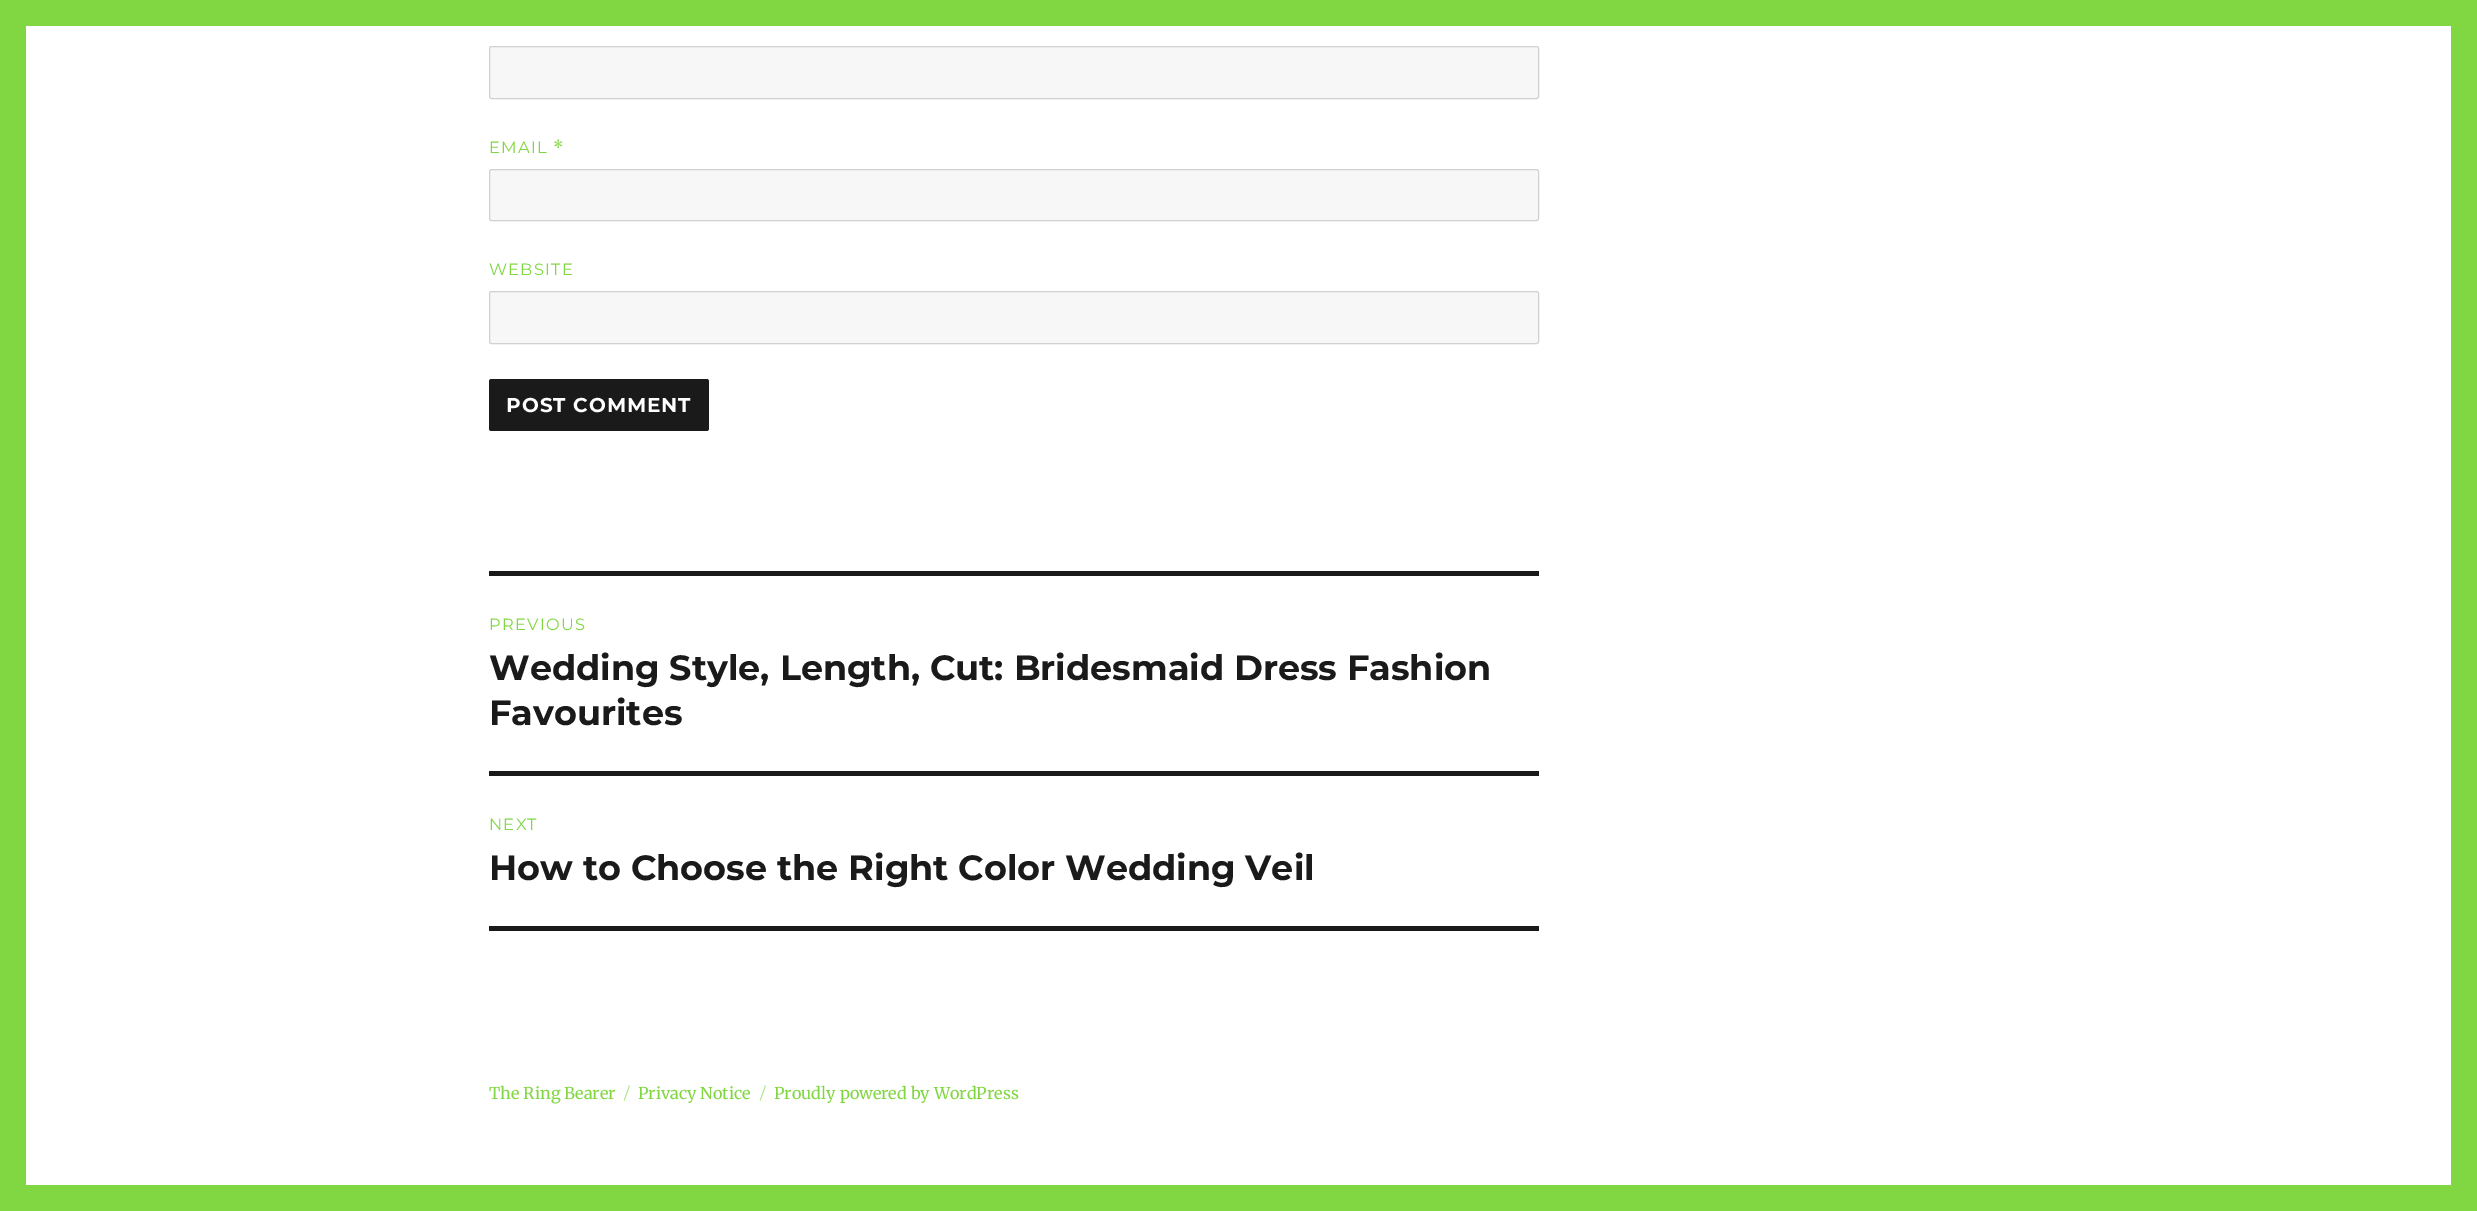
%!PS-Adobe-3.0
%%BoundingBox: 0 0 2477 1211
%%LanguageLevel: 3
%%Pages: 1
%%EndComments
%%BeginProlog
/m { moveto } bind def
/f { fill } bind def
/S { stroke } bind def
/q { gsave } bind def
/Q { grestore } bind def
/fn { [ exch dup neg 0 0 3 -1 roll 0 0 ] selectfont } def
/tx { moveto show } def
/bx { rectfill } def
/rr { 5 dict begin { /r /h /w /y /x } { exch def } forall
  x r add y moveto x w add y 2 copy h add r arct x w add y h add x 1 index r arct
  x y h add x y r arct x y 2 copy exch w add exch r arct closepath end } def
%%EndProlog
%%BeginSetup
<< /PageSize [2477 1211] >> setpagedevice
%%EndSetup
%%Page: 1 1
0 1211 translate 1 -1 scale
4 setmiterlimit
0.506 0.843 0.259 setrgbcolor
0 0 2477 1211 bx
1 setgray
26 26 2425 1159 bx
0.969 setgray
489.5 46.5 1049 52 2 rr q f Q
0.82 setgray
S
/Montserrat-Regular 16.25 fn
0.506 0.843 0.259 setrgbcolor
489 153 m 1.25 0 (EMAIL) ashow
/Merriweather-Regular 16.25 fn
553 153 m 1.25 0 (*) ashow
0.969 setgray
489.5 169.5 1049 51 2 rr q f Q
0.82 setgray
S
/Montserrat-Regular 16.25 fn
0.506 0.843 0.259 setrgbcolor
489 275 m 1.25 0 (WEBSITE) ashow
0.969 setgray
489.5 291.5 1049 52 2 rr q f Q
0.82 setgray
S
0.102 setgray
489 379 220 52 2.5 rr f
/Montserrat-Bold 20 fn
1 setgray
506 412 m 1 0 (POST COMMENT) ashow
0.102 setgray
489 571 1050 5 bx
489 926 1050 5 bx
/Montserrat-Regular 16.25 fn
0.506 0.843 0.259 setrgbcolor
489 630 m 1.25 0 (PREVIOUS) ashow
/Montserrat-Bold 35 fn
0.102 setgray
(Wedding Style, Length, Cut: Bridesmaid Dress Fashion) 489 680 tx
(Favourites) 489 725 tx
489 771 1050 5 bx
/Montserrat-Regular 16.25 fn
0.506 0.843 0.259 setrgbcolor
489 830 m 1.25 0 (NEXT) ashow
/Montserrat-Bold 35 fn
0.102 setgray
(How to Choose the Right Color Wedding Veil) 489 880 tx
/Merriweather-Regular 16.25 fn
0.506 0.843 0.259 setrgbcolor
(The Ring Bearer) 489 1099 tx
/Montserrat-Regular 16.25 fn
0.655 0.89 0.482 setrgbcolor
(/) 624 1099 tx
/Merriweather-Regular 16.25 fn
0.506 0.843 0.259 setrgbcolor
(Privacy Notice) 638 1099 tx
/Montserrat-Regular 16.25 fn
0.655 0.89 0.482 setrgbcolor
(/) 760 1099 tx
/Merriweather-Regular 16.25 fn
0.506 0.843 0.259 setrgbcolor
(Proudly powered by WordPress) 774 1099 tx
showpage
%%EOF
